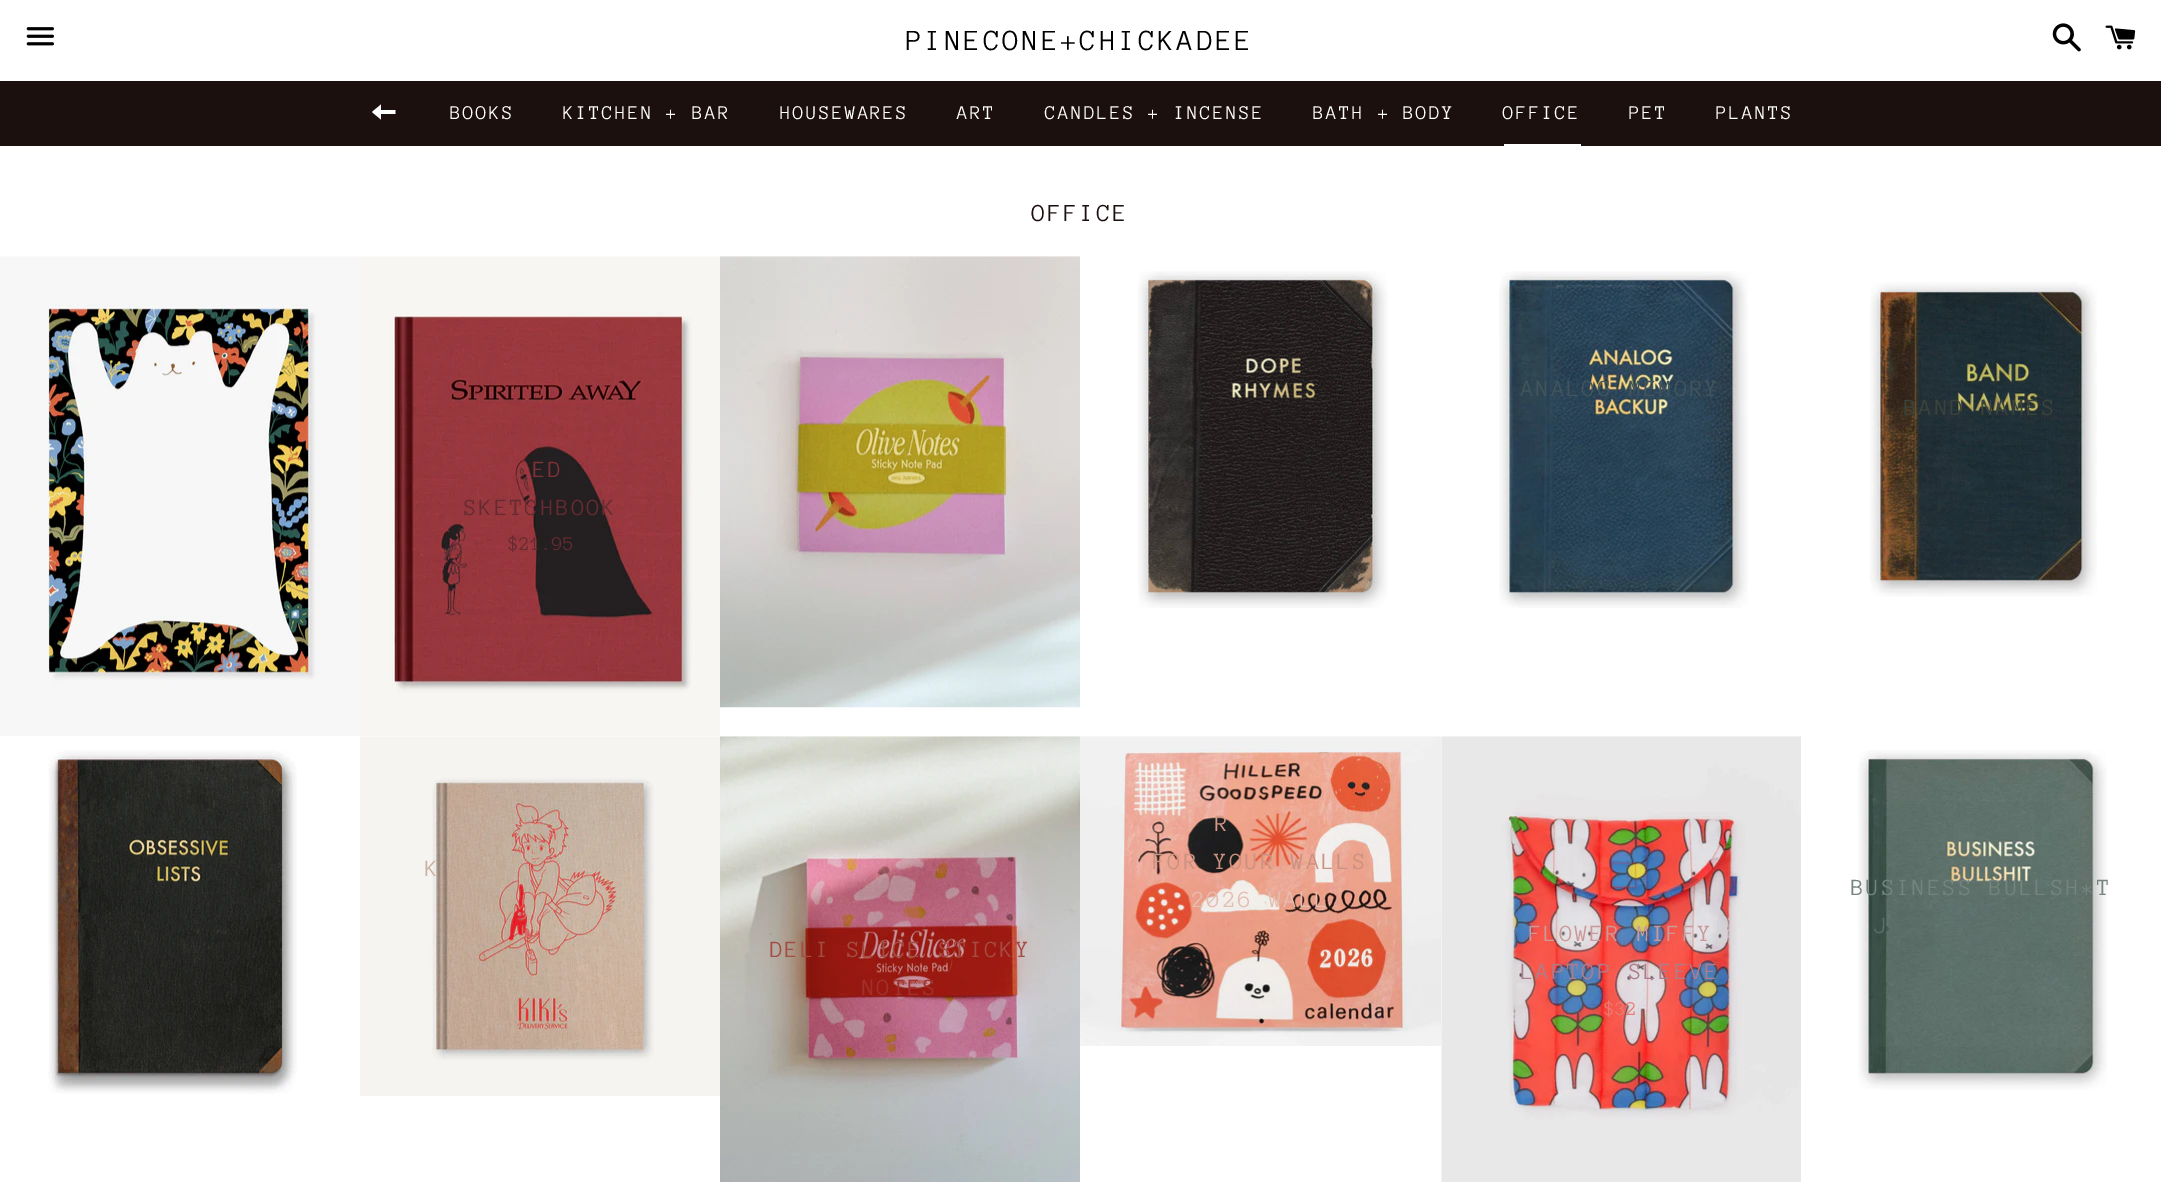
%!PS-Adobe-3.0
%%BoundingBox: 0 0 2161 1182
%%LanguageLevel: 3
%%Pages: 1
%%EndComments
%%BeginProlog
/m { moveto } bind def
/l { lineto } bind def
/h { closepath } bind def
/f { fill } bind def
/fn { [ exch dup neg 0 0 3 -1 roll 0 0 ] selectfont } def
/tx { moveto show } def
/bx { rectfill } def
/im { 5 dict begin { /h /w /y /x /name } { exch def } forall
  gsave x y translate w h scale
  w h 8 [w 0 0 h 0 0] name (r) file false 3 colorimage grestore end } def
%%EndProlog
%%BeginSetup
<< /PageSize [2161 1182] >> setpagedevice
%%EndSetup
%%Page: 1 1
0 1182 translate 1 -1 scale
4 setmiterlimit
1 setgray
0 0 2161 1182 bx
(image0.raw) 26 27 28 19 im
/AnonymousPro-Regular 30 fn
0 setgray
906 50 m 3 0 (PINECONE+CHICKADEE) ashow
(image1.raw) 2052 23 29 29 im
(image2.raw) 2105 25 31 25 im
0.106 0.063 0.055 setrgbcolor
0 81 2161 65 bx
1 setgray
381 110 m 381 104.5 l 372 112 l 381 119.5 l 381 114 l 395.5 114 l 395.5 110 l h f
/AnonymousPro-Regular 20 fn
450 119 m 2 0 (BOOKS) ashow
563 119 m 2 0 (KITCHEN + BAR) ashow
780 119 m 2 0 (HOUSEWARES) ashow
957 119 m 2 0 (ART) ashow
1045 119 m 2 0 (CANDLES + INCENSE) ashow
1313 119 m 2 0 (BATH + BODY) ashow
1503 119 m 2 0 (OFFICE) ashow
1504 144 77 2 bx
1629 119 m 2 0 (PET) ashow
1716 119 m 2 0 (PLANTS) ashow
/AnonymousPro-Regular 25 fn
0.106 0.063 0.055 setrgbcolor
1032 221 m 2.5 0 (OFFICE) ashow
(image3.raw) 0 256 360 480 im
(image4.raw) 720 256 360 452 im
(image5.raw) 1138 271 250 337 im
(image6.raw) 1499 271 249 337 im
/AnonymousPro-Regular 23.75 fn
0.263 0.333 0.361 setrgbcolor
1521 396 m 2.4 0 (ANALOG MEMORY) ashow
(image7.raw) 1870 282 227 315 im
0.231 0.263 0.227 setrgbcolor
1904 415 m 2.4 0 (BAND NAMES) ashow
(image8.raw) 360 256 360 480 im
0.494 0.196 0.216 setrgbcolor
533 477 m 2.4 0 (ED) ashow
0.392 0.173 0.192 setrgbcolor
464 515 m 2.4 0 (SKETCHBOOK) ashow
/AnonymousPro-Regular 20 fn
($21.95) 508 550 tx
(image9.raw) 48 750 249 344 im
(image10.raw) 360 736 360 360 im
/AnonymousPro-Regular 23.75 fn
0.792 0.702 0.643 setrgbcolor
425 876 m 2.4 0 (K) ashow
(image11.raw) 1080 736 361 310 im
0.847 0.6 0.533 setrgbcolor
1215 831 m 2.4 0 (R) ashow
0.796 0.569 0.506 setrgbcolor
1153 869 m 2.4 0 (FOR YOUR WALLS) ashow
0.898 0.745 0.698 setrgbcolor
1192 907 m 2.4 0 (2026 WALL) ashow
(image12.raw) 1858 750 249 340 im
0.459 0.518 0.494 setrgbcolor
1851 895 m 2.4 0 (BUSINESS BULLSH*T) ashow
0.357 0.435 0.408 setrgbcolor
1874 933 m 2.4 0 (J) ashow
(image13.raw) 720 736 360 446 im
0.647 0.298 0.267 setrgbcolor
770 957 m 2.4 0 (DELI SLICE STICKY) ashow
0.635 0.192 0.176 setrgbcolor
862 995 m 2.4 0 (NOTES) ashow
(image14.raw) 1441 736 360 446 im
0.792 0.604 0.608 setrgbcolor
1529 941 m 2.4 0 (FLOWER MIFFY) ashow
0.682 0.49 0.553 setrgbcolor
1521 979 m 2.4 0 (LAPTOP SLEEVE) ashow
/AnonymousPro-Regular 20 fn
0.925 0.478 0.455 setrgbcolor
($32) 1604 1015 tx
showpage
%%EOF
